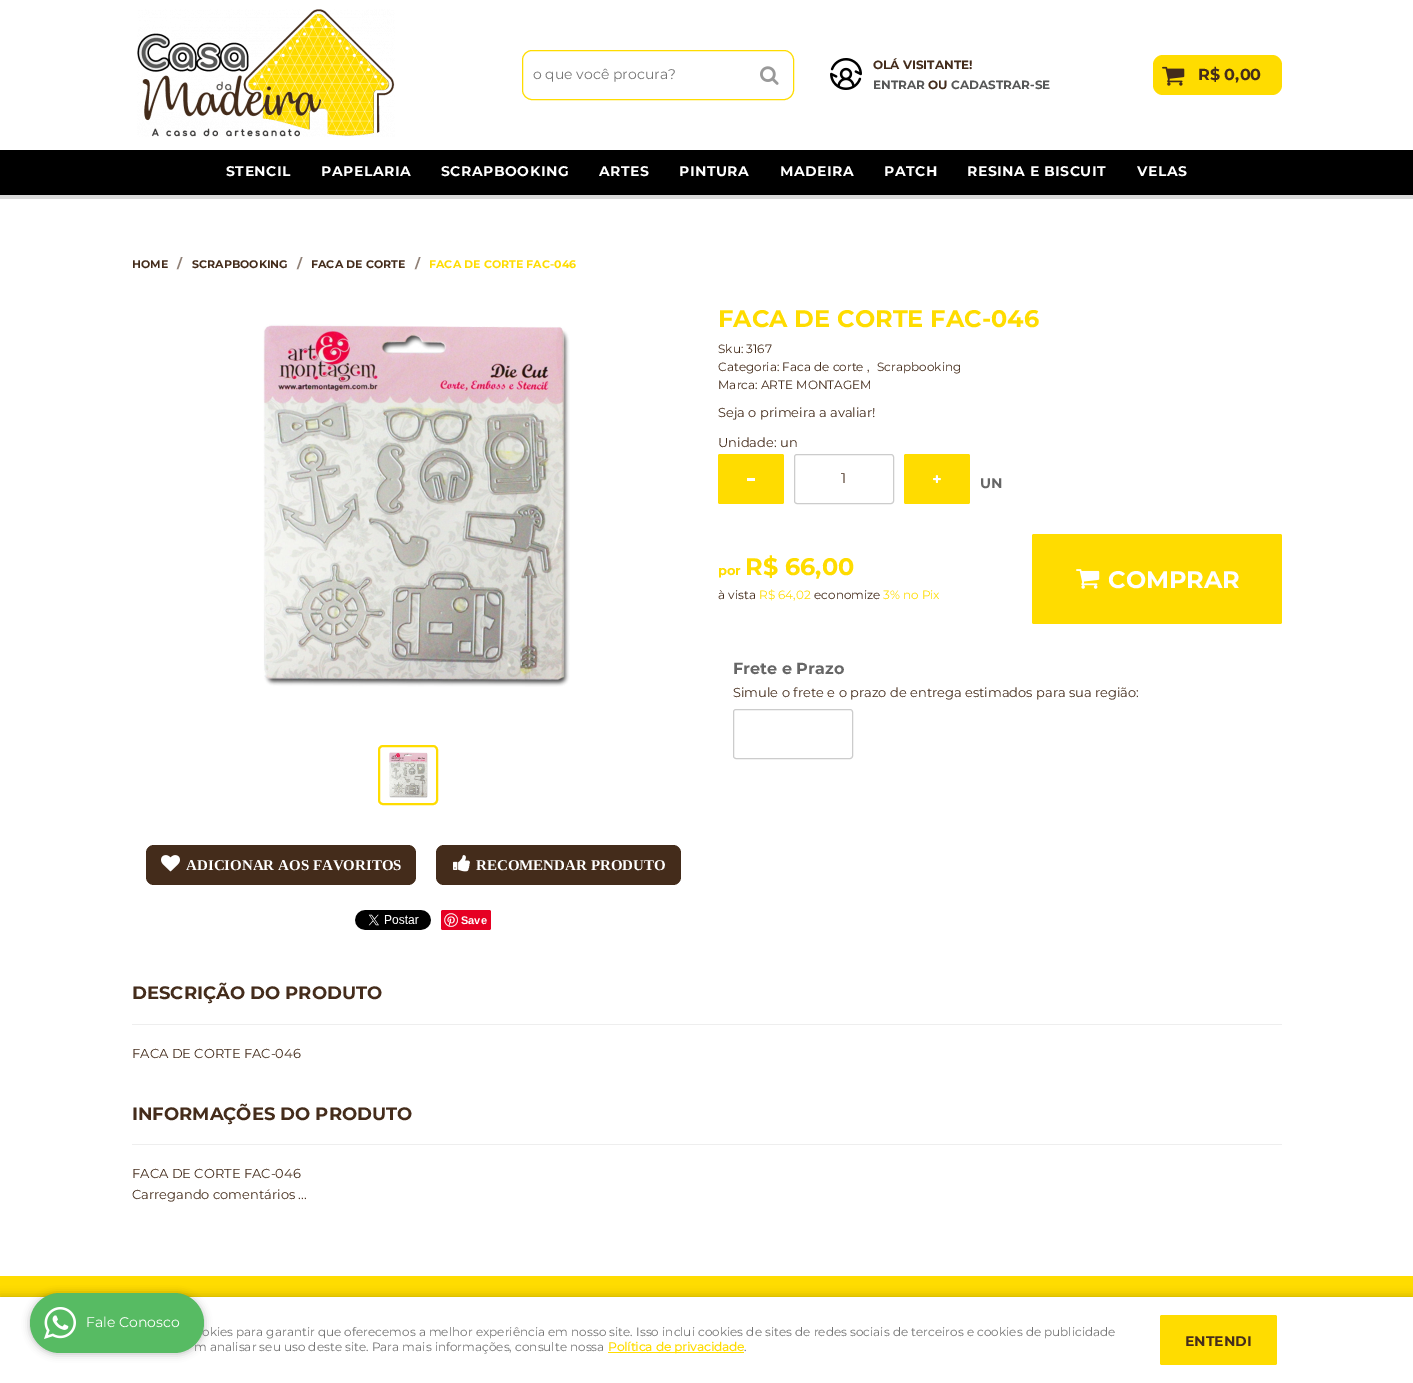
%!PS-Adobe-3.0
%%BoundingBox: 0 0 1413 1383
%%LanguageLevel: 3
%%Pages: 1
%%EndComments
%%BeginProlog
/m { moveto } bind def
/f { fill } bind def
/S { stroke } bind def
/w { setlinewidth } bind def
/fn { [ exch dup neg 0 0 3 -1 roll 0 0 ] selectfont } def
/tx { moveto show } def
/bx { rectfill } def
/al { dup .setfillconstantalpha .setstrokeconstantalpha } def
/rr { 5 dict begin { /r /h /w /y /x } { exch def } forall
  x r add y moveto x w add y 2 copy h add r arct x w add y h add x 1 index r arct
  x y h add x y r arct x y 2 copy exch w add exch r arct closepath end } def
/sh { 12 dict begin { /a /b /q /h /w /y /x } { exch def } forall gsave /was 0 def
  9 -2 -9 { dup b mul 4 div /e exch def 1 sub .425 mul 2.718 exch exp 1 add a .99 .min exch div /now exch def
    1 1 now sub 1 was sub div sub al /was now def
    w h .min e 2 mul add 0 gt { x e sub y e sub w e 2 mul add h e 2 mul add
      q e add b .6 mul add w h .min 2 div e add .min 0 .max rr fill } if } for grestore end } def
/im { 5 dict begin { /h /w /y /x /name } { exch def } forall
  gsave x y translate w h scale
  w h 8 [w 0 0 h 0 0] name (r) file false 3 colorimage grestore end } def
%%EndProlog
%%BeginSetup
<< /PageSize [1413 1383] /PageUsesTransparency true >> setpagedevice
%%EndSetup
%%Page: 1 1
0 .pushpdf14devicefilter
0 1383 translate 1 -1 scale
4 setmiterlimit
1 setgray
0 0 1413 1383 bx
(image0.raw) 137 9 258 128 im
1 0.863 0 setrgbcolor
522.5 50.5 271 49 9.5 rr S
/Montserrat-Regular 14 fn
0.459 setgray
(o que você procura?) 533 79 tx
(image1.raw) 760 66 19 19 im
(image2.raw) 830 58 32 32 im
/Montserrat-Bold 12 fn
0.267 0.173 0.106 setrgbcolor
(OLÁ VISITANTE!) 873 69 tx
0.337 0.341 0.341 setrgbcolor
(ENTRAR) 873 89 tx
0.267 0.173 0.106 setrgbcolor
(OU) 928 89 tx
0.337 0.341 0.341 setrgbcolor
(CADASTRAR-SE) 951 89 tx
1 0.863 0 setrgbcolor
1153 55 129 40 10 rr f
(image3.raw) 1162 66 23 20 im
/Montserrat-Bold 16 fn
0.267 0.173 0.106 setrgbcolor
(R$ 0,00) 1198 80 tx
0.851 setgray
0 195 1413 4 bx
0 setgray
0 150 1413 45 bx
/Montserrat-Bold 14 fn
1 setgray
226 176 m 0.5 0 (STENCIL) ashow
321 176 m 0.5 0 (PAPELARIA) ashow
441 176 m 0.5 0 (SCRAPBOOKING) ashow
599 176 m 0.5 0 (ARTES) ashow
679 176 m 0.5 0 (PINTURA) ashow
780 176 m 0.5 0 (MADEIRA) ashow
884 176 m 0.5 0 (PATCH) ashow
967 176 m 0.5 0 (RESINA E BISCUIT) ashow
1137 176 m 0.5 0 (VELAS) ashow
/Montserrat-Bold 11 fn
0.267 0.173 0.106 setrgbcolor
(HOME) 132 268 tx
/Montserrat-Bold 13 fn
0.561 0.502 0.463 setrgbcolor
(/) 177 268 tx
/Montserrat-Bold 11 fn
0.267 0.173 0.106 setrgbcolor
(SCRAPBOOKING) 192 268 tx
/Montserrat-Bold 13 fn
0.561 0.502 0.463 setrgbcolor
(/) 297 268 tx
/Montserrat-Bold 11 fn
0.267 0.173 0.106 setrgbcolor
(FACA DE CORTE) 311 268 tx
/Montserrat-Bold 13 fn
0.561 0.502 0.463 setrgbcolor
(/) 415 268 tx
/Montserrat-Bold 11 fn
1 0.863 0 setrgbcolor
(FACA DE CORTE FAC-046) 429 268 tx
/Montserrat-Bold 24 fn
(FACA DE CORTE FAC-046) 718 327 tx
/Montserrat-Regular 12 fn
0.267 0.173 0.106 setrgbcolor
(Sku: 3167) 718 353 tx
(Categoria: Faca de corte ,) 718 371 tx
(Scrapbooking) 877 371 tx
(Marca: ARTE MONTAGEM) 718 389 tx
/Montserrat-Regular 13 fn
(Seja o primeira a avaliar!) 718 417 tx
(Unidade: un) 718 447 tx
1 0.863 0 setrgbcolor
718 454 66 50 2 rr f
1 setgray
747 478 8 3 bx
0.8 setgray
794.5 454.5 99 49 2.5 rr S
/Montserrat-Regular 14 fn
0.267 0.173 0.106 setrgbcolor
(1) 841 483 tx
1 0.863 0 setrgbcolor
904 454 66 50 2 rr f
(image4.raw) 933 475 8 8 im
/Montserrat-Bold 14 fn
0.4 setgray
(UN) 980 488 tx
/Montserrat-Bold 13 fn
1 0.863 0 setrgbcolor
(por) 718 575 tx
/Montserrat-Bold 24 fn
(R$ 66,00) 745 575 tx
/Montserrat-Regular 12 fn
0.267 0.173 0.106 setrgbcolor
(à vista) 718 599 tx
1 0.863 0 setrgbcolor
(R$ 64,02) 759 599 tx
0.267 0.173 0.106 setrgbcolor
(economize) 814 599 tx
1 0.863 0 setrgbcolor
(3% no Pix) 883 599 tx
1032 534 250 90 2 rr f
(image5.raw) 1076 569 24 20 im
/Montserrat-Bold 24 fn
1 setgray
(COMPRAR) 1108 588 tx
/Montserrat-Bold 16 fn
0.4 setgray
(Frete e Prazo) 733 674 tx
/Montserrat-Regular 13 fn
0.267 0.173 0.106 setrgbcolor
(Simule o frete e o prazo de entrega estimados para sua região:) 733 697 tx
0.8 setgray
733.5 709.5 119 49 2.5 rr S
(image6.raw) 263 324 307 363 im
1 0.863 0 setrgbcolor
2 w
379 746 58 58 4 rr S
(image7.raw) 389 752 39 46 im
0.267 0.173 0.106 setrgbcolor
146 845 270 40 8 rr f
(image8.raw) 161 855 19 17 im
/LiberationSerif-Bold 15 fn
1 setgray
(ADICIONAR AOS FAVORITOS) 186 870 tx
0.267 0.173 0.106 setrgbcolor
436 845 245 40 8 rr f
(image9.raw) 453 855 17 17 im
1 setgray
(RECOMENDAR PRODUTO) 476 870 tx
(image10.raw) 355 910 76 20 im
0.902 0 0.137 setrgbcolor
441 910 50 20 2 rr f
(image11.raw) 444 913 14 14 im
/LiberationSans-Bold 11 fn
1 setgray
(Save) 461 924 tx
0.933 setgray
132 1024 1150 1 bx
/Montserrat-Bold 18 fn
0.267 0.173 0.106 setrgbcolor
(DESCRIÇÃO DO PRODUTO) 132 999 tx
/Montserrat-Regular 13 fn
(FACA DE CORTE FAC-046) 132 1058 tx
0.933 setgray
132 1144 1150 1 bx
/Montserrat-Bold 18 fn
0.267 0.173 0.106 setrgbcolor
(INFORMAÇÕES DO PRODUTO) 132 1120 tx
/Montserrat-Regular 13 fn
(FACA DE CORTE FAC-046) 132 1178 tx
(Carregando comentários ...) 132 1199 tx
1 0.863 0 setrgbcolor
0 1276 1413 21 bx
0 setgray
0 1297 1413 86 0 5 0.25 sh
1 setgray
0 1297 1413 86 bx
0 setgray
30 1294 174 60 30 4 0.25 sh
/Montserrat-Regular 12 fn
0.459 setgray
(okies para garantir que oferecemos a melhor experiência em nosso site. Isso inclui cookies de sites de redes sociais de terceiros e cookies de publicidade) 202 1336 tx
(m analisar seu uso deste site. Para mais informações, consulte nossa) 194 1351 tx
0.341 0.733 0.388 setrgbcolor
30 1293 174 60 30 rr f
(image12.raw) 44 1307 32 32 im
/Montserrat-Regular 14 fn
1 setgray
(Fale Conosco) 86 1327 tx
1 0.863 0 setrgbcolor
608 1352 136 1 bx
/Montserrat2-Bold 12 fn
(Política de privacidade) 608 1351 tx
/Montserrat-Regular 12 fn
0.459 setgray
(.) 744 1351 tx
1 0.863 0 setrgbcolor
1160 1315 117 50 2 rr f
/Montserrat-Bold 14 fn
0.267 0.173 0.106 setrgbcolor
(ENTENDI) 1185 1346 tx
.poppdf14devicefilter showpage
%%EOF
